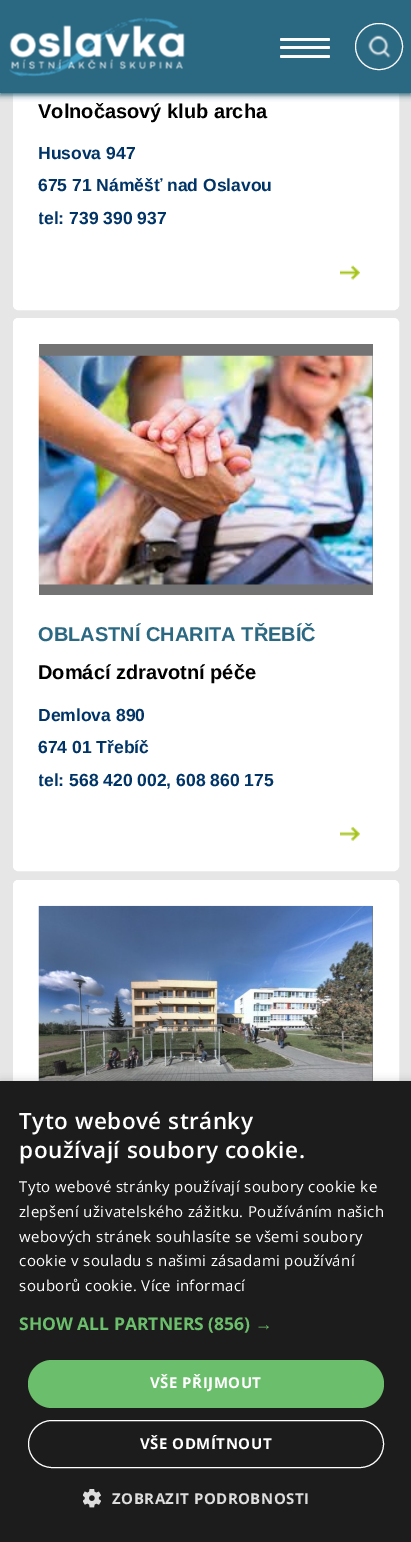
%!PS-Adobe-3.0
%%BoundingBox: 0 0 411 1542
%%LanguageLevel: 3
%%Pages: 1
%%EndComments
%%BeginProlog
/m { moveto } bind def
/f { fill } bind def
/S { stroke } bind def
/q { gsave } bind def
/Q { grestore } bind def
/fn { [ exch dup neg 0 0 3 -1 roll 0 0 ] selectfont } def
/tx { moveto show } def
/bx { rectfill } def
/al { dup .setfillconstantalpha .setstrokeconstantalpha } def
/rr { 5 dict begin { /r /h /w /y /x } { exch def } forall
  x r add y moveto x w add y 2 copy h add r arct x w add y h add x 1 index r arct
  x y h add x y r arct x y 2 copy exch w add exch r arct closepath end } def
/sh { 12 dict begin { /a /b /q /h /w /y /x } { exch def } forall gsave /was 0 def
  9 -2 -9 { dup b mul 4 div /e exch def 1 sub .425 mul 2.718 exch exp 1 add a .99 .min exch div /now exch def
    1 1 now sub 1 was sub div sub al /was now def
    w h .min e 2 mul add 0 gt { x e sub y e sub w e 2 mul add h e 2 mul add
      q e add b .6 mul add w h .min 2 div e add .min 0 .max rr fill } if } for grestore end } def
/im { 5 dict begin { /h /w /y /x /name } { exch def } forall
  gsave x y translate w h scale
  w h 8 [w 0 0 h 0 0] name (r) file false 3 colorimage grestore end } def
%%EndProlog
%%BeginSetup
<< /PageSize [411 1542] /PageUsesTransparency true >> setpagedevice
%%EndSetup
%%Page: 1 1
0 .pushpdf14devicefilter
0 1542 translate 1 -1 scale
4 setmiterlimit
0.902 setgray
0 0 411 1542 bx
1 setgray
13.5 -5.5 385 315 4.5 rr q f Q
S
0.149 0.365 0.447 setrgbcolor
0 3 411 92 0 3 1 sh
0.169 0.408 0.51 setrgbcolor
0 0 411 93 bx
(image0.raw) 9 17 176 60 im
1 setgray
280 38 50 3 1.5 rr f
280 46 50 3 1.5 rr f
280 55 50 3 1.5 rr f
(image1.raw) 368 35 23 23 im
355.5 23.5 47 46 23 rr S
/LiberationSans-Bold 20 fn
0 0 0.004 setrgbcolor
(Volnočasový klub archa) 38 118 tx
/LiberationSans-Bold 17.5 fn
0 0.2 0.4 setrgbcolor
(Husova 947) 38 159 tx
(675 71 Náměšť nad Oslavou) 38 191 tx
q
39 136 334 98 rectclip
(tel: 739 390 937) 38 224 tx
Q
(image2.raw) 340 265 20 15 im
1 setgray
13.5 318.5 385 552 4.5 rr q f Q
S
0.451 setgray
39 344 334 251 bx
(image3.raw) 38 355 335 230 im
/LiberationSans-Bold 20 fn
0.169 0.408 0.51 setrgbcolor
(OBLASTNÍ CHARITA TŘEBÍČ) 38 641 tx
0 0 0.004 setrgbcolor
(Domácí zdravotní péče) 38 679 tx
/LiberationSans-Bold 17.5 fn
0 0.2 0.4 setrgbcolor
(Demlova 890) 38 721 tx
(674 01 Třebíč) 38 753 tx
q
39 698 334 97 rectclip
(tel: 568 420 002, 608 860 175) 38 786 tx
Q
(image4.raw) 340 827 20 14 im
1 setgray
13.5 880.5 385 548 4.5 rr q f Q
S
0.451 setgray
372 906 1 175 bx
(image5.raw) 38 905 335 176 im
0 setgray
1 1084 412 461 0 5 0.35 sh
0.11 setgray
0 1081 411 461 bx
/OpenSans-SemiBold 22.5 fn
1 setgray
19 1129 m 0.5 0 (Tyto webové stránky) ashow
19 1158 m 0.5 0 (používají soubory cookie.) ashow
/OpenSans-Regular 15 fn
19 1192 m 0.4 0 (Tyto webové stránky používají soubory cookie ke) ashow
19 1217 m 0.4 0 (zlepšení uživatelského zážitku. Používáním našich) ashow
19 1242 m 0.4 0 (webových stránek souhlasíte se všemi soubory) ashow
19 1266 m 0.4 0 (cookie v souladu s našimi zásadami používání) ashow
19 1291 m 0.4 0 (souborů cookie. Více informací) ashow
/OpenSans-Bold 17.5 fn
0.42 0.745 0.42 setrgbcolor
(SHOW ALL PARTNERS \(856\)) 19 1330 tx
/LiberationSans-Bold 17.5 fn
(→) 255 1330 tx
28 1360 356 48 24 rr f
/OpenSans-Bold 15 fn
1 setgray
150 1388 m 0.5 0 (VŠE PŘIJMOUT) ashow
28.5 1420.5 355 47 23.5 rr S
140 1449 m 0.5 0 (VŠE ODMÍTNOUT) ashow
(image6.raw) 83 1489 18 19 im
0.867 setgray
112 1504 m 0.5 0 (ZOBRAZIT PODROBNOSTI) ashow
.poppdf14devicefilter showpage
%%EOF
